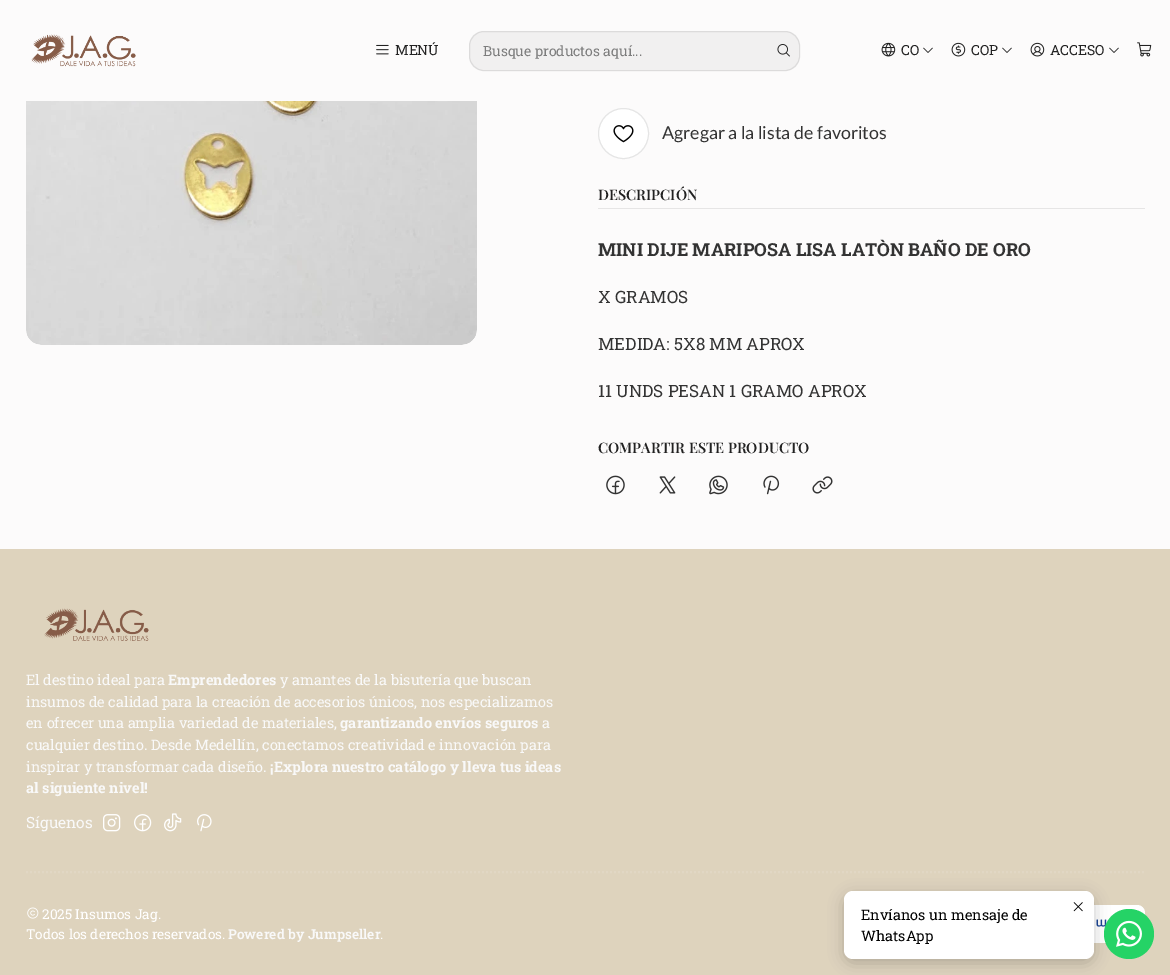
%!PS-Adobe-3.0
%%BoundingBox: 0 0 1170 975
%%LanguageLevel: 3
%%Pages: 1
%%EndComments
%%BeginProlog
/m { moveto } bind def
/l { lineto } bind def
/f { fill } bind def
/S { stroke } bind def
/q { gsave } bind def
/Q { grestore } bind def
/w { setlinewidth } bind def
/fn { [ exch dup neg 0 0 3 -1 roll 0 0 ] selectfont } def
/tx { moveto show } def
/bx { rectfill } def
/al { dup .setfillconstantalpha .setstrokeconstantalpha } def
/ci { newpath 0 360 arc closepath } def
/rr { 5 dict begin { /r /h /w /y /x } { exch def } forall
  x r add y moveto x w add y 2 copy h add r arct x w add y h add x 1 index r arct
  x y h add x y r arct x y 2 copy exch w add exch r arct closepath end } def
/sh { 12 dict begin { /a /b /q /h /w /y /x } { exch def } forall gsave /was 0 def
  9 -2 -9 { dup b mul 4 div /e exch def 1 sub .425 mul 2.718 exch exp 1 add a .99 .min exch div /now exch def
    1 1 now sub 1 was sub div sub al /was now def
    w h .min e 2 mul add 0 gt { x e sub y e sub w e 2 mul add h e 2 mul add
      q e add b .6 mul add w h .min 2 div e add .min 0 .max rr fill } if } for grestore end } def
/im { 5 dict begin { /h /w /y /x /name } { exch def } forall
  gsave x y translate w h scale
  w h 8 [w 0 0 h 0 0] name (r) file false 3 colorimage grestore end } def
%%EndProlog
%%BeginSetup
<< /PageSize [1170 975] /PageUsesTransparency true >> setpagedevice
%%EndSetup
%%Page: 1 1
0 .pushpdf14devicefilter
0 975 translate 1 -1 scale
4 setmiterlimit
0.988 0.984 0.984 setrgbcolor
0 0 1170 975 bx
(image0.raw) 31 34 105 33 im
(image1.raw) 376 44 13 11 im
/RobotoSlab-Regular 14 fn
0.133 setgray
(MENÚ) 395 55 tx
0.945 0.941 0.941 setrgbcolor
469 31 331 40 15 rr f
0.1 al
0.133 setgray
469.5 31.5 330 39 14.5 rr S
1 al
0.49 setgray
(Busque productos aquí...) 483 56 tx
(image2.raw) 777 44 13 13 im
(image3.raw) 881 42 15 15 im
0.133 setgray
(CO) 901 55 tx
(image4.raw) 923 47 10 6 im
(image5.raw) 951 42 15 15 im
(COP) 971 55 tx
(image4.raw) 1002 47 10 6 im
(image6.raw) 1030 42 15 15 im
(ACCESO) 1050 55 tx
(image4.raw) 1109 47 10 6 im
(image7.raw) 1137 42 15 15 im
(image8.raw) 26 101 451 244 im
1 setgray
623.5 133.5 25 ci q f Q
0.898 setgray
S
(image9.raw) 613 125 21 18 im
/Lato-Regular 17.8 fn
0.2 setgray
(Agregar a la lista de favoritos) 662 139 tx
0.902 0.898 0.898 setrgbcolor
598 208 547 1 bx
/PlayfairDisplay-SemiBold 14.45 fn
0.133 setgray
(DESCRIPCIÓN) 598 200 tx
/RobotoSlab-Bold 18 fn
0.2 setgray
(MINI DIJE MARIPOSA LISA LATÒN BAÑO DE ORO) 598 256 tx
/RobotoSlab-Regular 17 fn
(X GRAMOS) 598 303 tx
(MEDIDA: 5X8 MM APROX) 598 350 tx
(11 UNDS PESAN 1 GRAMO APROX) 598 397 tx
/PlayfairDisplay-SemiBold 14.45 fn
0.133 setgray
(COMPARTIR ESTE PRODUCTO) 598 453 tx
(image10.raw) 606 475 19 20 im
(image11.raw) 659 476 17 18 im
(image12.raw) 709 475 19 20 im
(image13.raw) 763 475 17 20 im
(image14.raw) 812 476 21 18 im
0.871 0.827 0.741 setrgbcolor
0 549 1170 426 bx
(image15.raw) 44 608 105 33 im
/RobotoSlab-Regular 14.45 fn
0.976 setgray
(El destino ideal para) 26 685 tx
/RobotoSlab-Bold 14.45 fn
(Emprendedores) 168 685 tx
/RobotoSlab-Regular 14.45 fn
(y amantes de la bisutería que buscan) 280 685 tx
(insumos de calidad para la creación de accesorios únicos, nos especializamos) 26 707 tx
(en ofrecer una amplia variedad de materiales,) 26 728 tx
/RobotoSlab-Bold 14.45 fn
(garantizando envíos seguros) 340 728 tx
/RobotoSlab-Regular 14.45 fn
(a) 542 728 tx
(cualquier destino. Desde Medellín, conectamos creatividad e innovación para) 26 750 tx
(inspirar y transformar cada diseño.) 26 772 tx
/RobotoSlab-Bold 14.45 fn
(¡Explora nuestro catálogo y lleva tus ideas) 270 772 tx
(al siguiente nivel!) 26 793 tx
/RobotoSlab-Regular 15.5 fn
(Síguenos) 26 828 tx
(image16.raw) 103 814 18 18 im
(image17.raw) 134 814 18 18 im
(image18.raw) 164 813 18 19 im
(image19.raw) 197 814 15 18 im
0.882 0.843 0.769 setrgbcolor
2 w
[2 2] 0 setdash
26 872 m 1145 872 l S
(image20.raw) 27 907 12 12 im
/RobotoSlab-Regular 13.6 fn
1 setgray
(2025 Insumos Jag.) 42 919 tx
(Todos los derechos reservados.) 26 939 tx
/RobotoSlab-SemiBold 13.6 fn
0.976 setgray
(Powered by Jumpseller) 228 939 tx
/RobotoSlab-Regular 13.6 fn
1 setgray
(.) 380 939 tx
1087 905 58 38 8 rr f
(image21.raw) 1096 919 13 10 im
0 setgray
844 895 250 68 9 7.5 0.2 sh
1 setgray
844 891 250 68 9 rr f
(image22.raw) 1073 902 10 10 im
/RobotoSlab-Regular 14.45 fn
0 setgray
(Envíanos un mensaje de) 861 920 tx
(WhatsApp) 861 941 tx
0.145 0.827 0.4 setrgbcolor
1129 934 25 ci f
(image23.raw) 1116 920 26 27 im
.poppdf14devicefilter showpage
%%EOF
